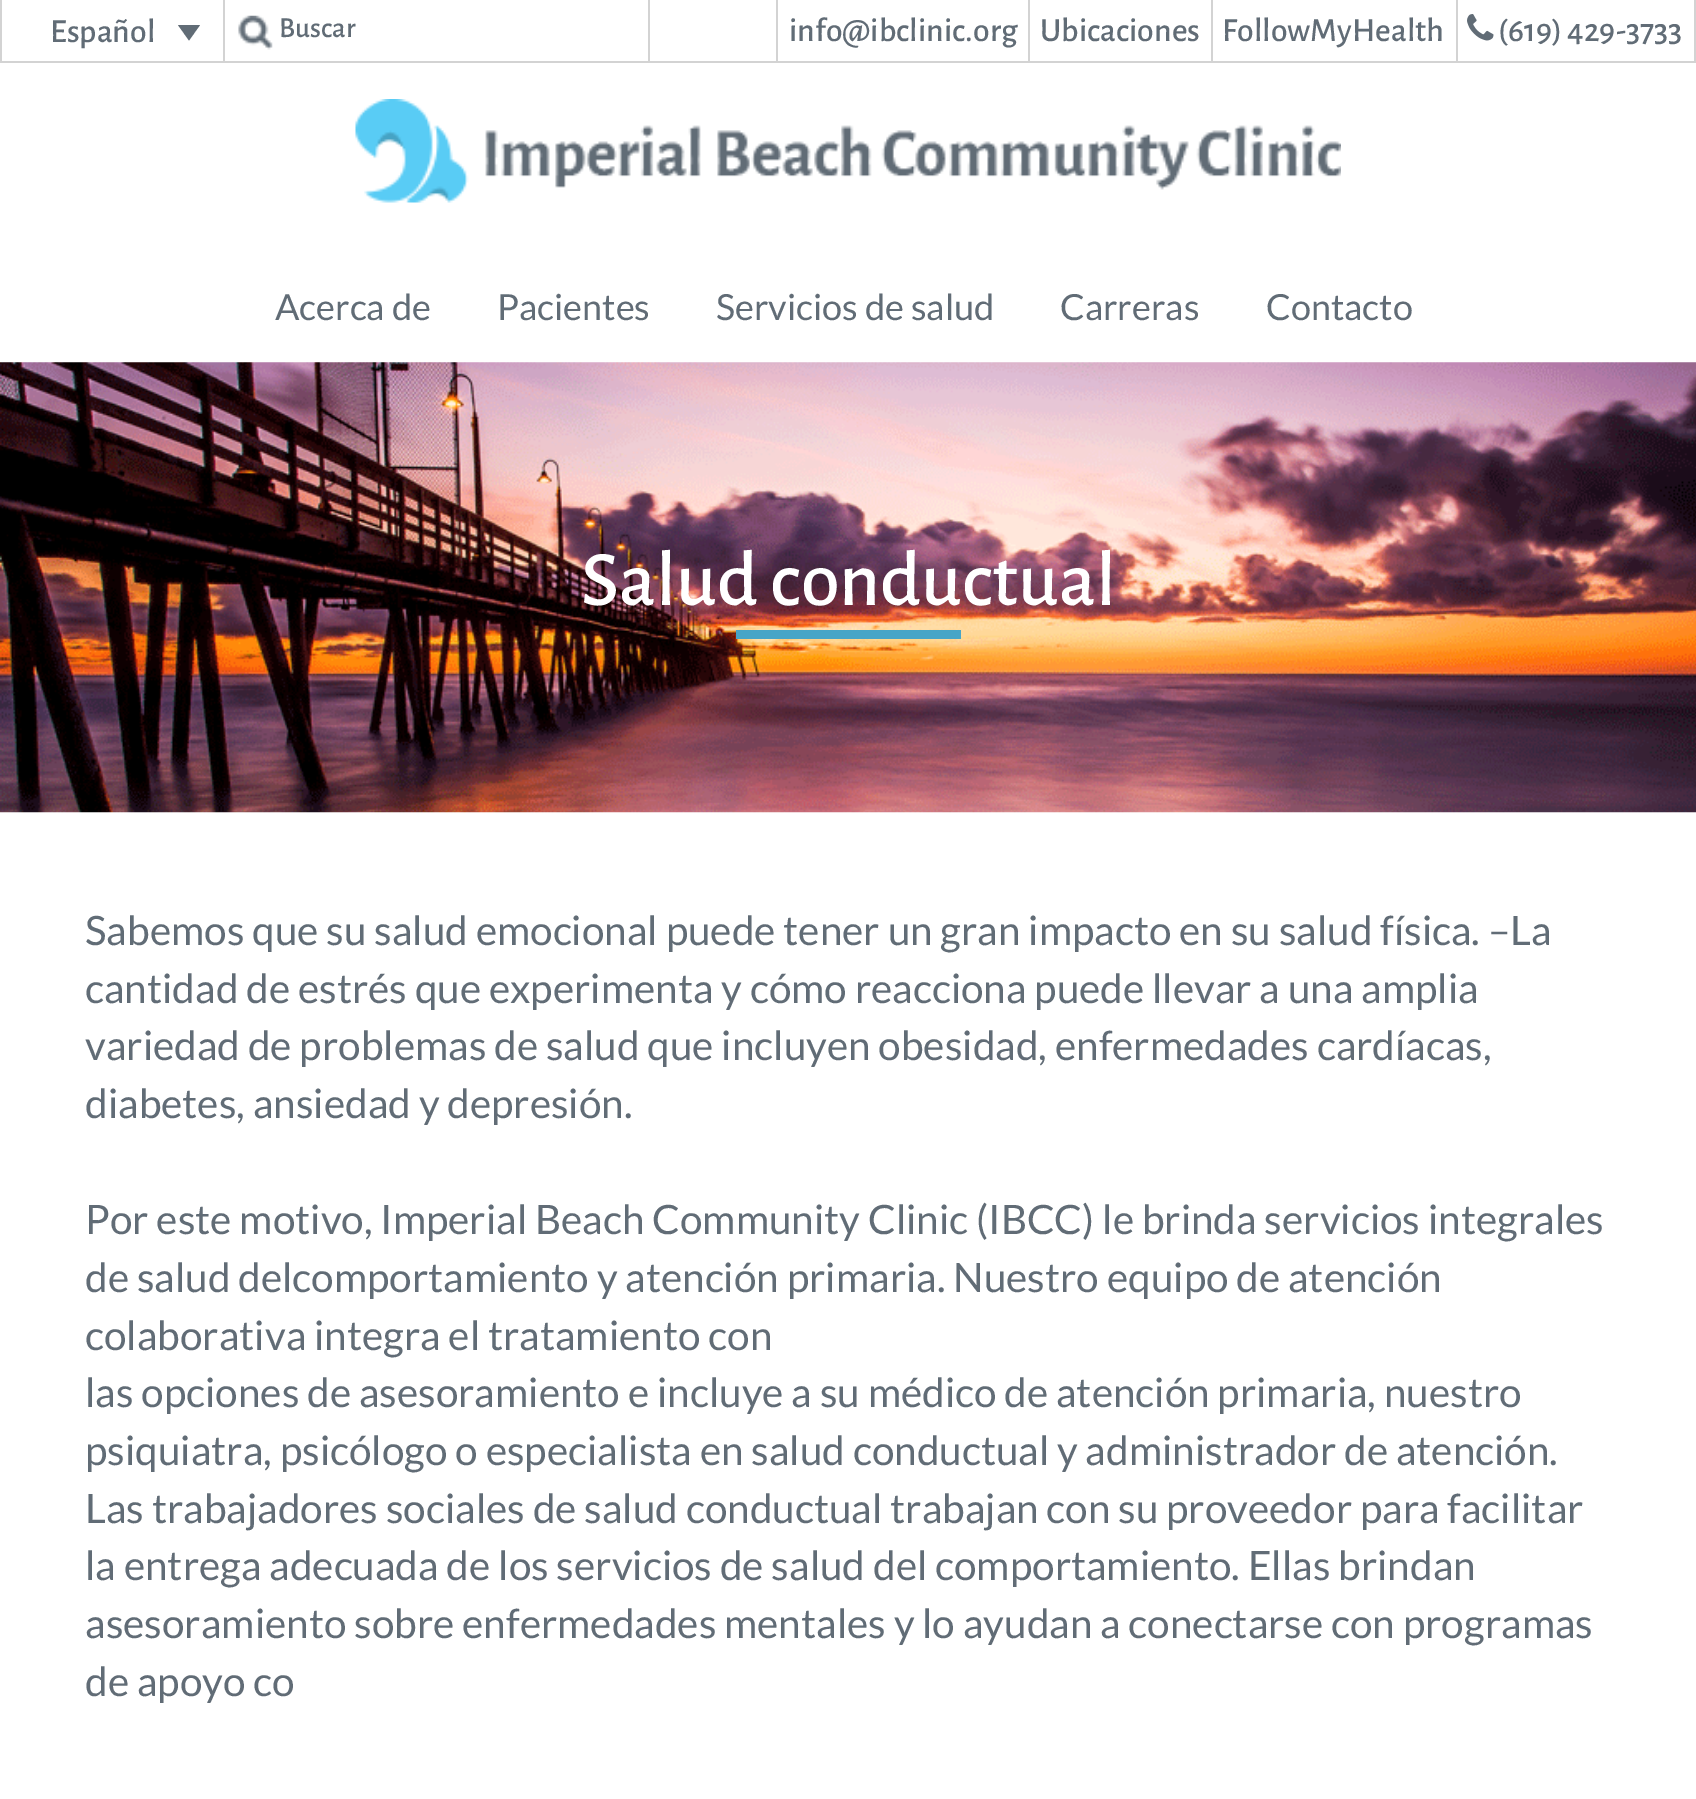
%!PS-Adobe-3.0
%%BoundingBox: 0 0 1696 1799
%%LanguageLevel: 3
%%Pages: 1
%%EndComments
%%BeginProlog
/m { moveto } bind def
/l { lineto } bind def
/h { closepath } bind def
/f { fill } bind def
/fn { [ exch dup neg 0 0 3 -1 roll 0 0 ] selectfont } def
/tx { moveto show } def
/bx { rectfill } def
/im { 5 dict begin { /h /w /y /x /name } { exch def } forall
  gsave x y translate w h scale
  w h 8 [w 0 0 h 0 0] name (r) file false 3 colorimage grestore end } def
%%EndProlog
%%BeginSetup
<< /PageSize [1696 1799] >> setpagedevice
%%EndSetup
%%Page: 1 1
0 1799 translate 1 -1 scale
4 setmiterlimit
1 setgray
0 0 1696 1799 bx
0.827 setgray
0 61 1696 2 bx
223 0 2 61 bx
0 0 2 61 bx
/AlegreyaSans-Medium 33.75 fn
0.38 0.424 0.463 setrgbcolor
(Español) 50 42 tx
178 25 m 200 25 l 189 40.5 l h f
(image0.raw) 238 15 35 35 im
0.827 setgray
648 0 2 61 bx
/AlegreyaSans-Medium 29 fn
0.38 0.424 0.463 setrgbcolor
(Buscar) 279 37 tx
0.827 setgray
1028 0 2 61 bx
776 0 2 61 bx
/AlegreyaSans-Medium 33.75 fn
0.38 0.424 0.463 setrgbcolor
(info@ibclinic.org) 789 41 tx
0.827 setgray
1211 0 2 61 bx
0.38 0.424 0.463 setrgbcolor
(Ubicaciones) 1040 41 tx
0.827 setgray
1456 0 2 61 bx
0.38 0.424 0.463 setrgbcolor
(FollowMyHealth) 1222 41 tx
0.827 setgray
1694 0 2 61 bx
(image1.raw) 1467 14 27 27 im
0.38 0.424 0.463 setrgbcolor
(\(619\) 429-3733) 1498 41 tx
(image2.raw) 355 99 986 104 im
/Lato-Regular 36 fn
(Acerca de) 275 320 tx
(Pacientes) 497 320 tx
(Servicios de salud) 716 320 tx
(Carreras) 1060 320 tx
(Contacto) 1266 320 tx
(image3.raw) 0 362 1696 451 im
/AlegreyaSans-Medium 78.75 fn
1 setgray
(Salud conductual) 581 605 tx
0.278 0.647 0.78 setrgbcolor
736 630 225 9 bx
/Lato-Regular 40.5 fn
0.38 0.424 0.463 setrgbcolor
(Sabemos que su salud emocional puede tener un gran impacto en su salud física. –La) 85 945 tx
(cantidad de estrés que experimenta y cómo reacciona puede llevar a una amplia) 85 1003 tx
(variedad de problemas de salud que incluyen obesidad, enfermedades cardíacas,) 85 1060 tx
(diabetes, ansiedad y depresión.) 85 1118 tx
(Por este motivo, Imperial Beach Community Clinic \(IBCC\) le brinda servicios integrales) 85 1234 tx
(de salud delcomportamiento y atención primaria. Nuestro equipo de atención) 85 1292 tx
(colaborativa integra el tratamiento con) 85 1350 tx
(las opciones de asesoramiento e incluye a su médico de atención primaria, nuestro) 85 1407 tx
(psiquiatra, psicólogo o especialista en salud conductual y administrador de atención.) 85 1465 tx
(Las trabajadores sociales de salud conductual trabajan con su proveedor para facilitar) 85 1523 tx
(la entrega adecuada de los servicios de salud del comportamiento. Ellas brindan) 85 1580 tx
(asesoramiento sobre enfermedades mentales y lo ayudan a conectarse con programas) 85 1638 tx
(de apoyo co) 85 1696 tx
showpage
%%EOF
